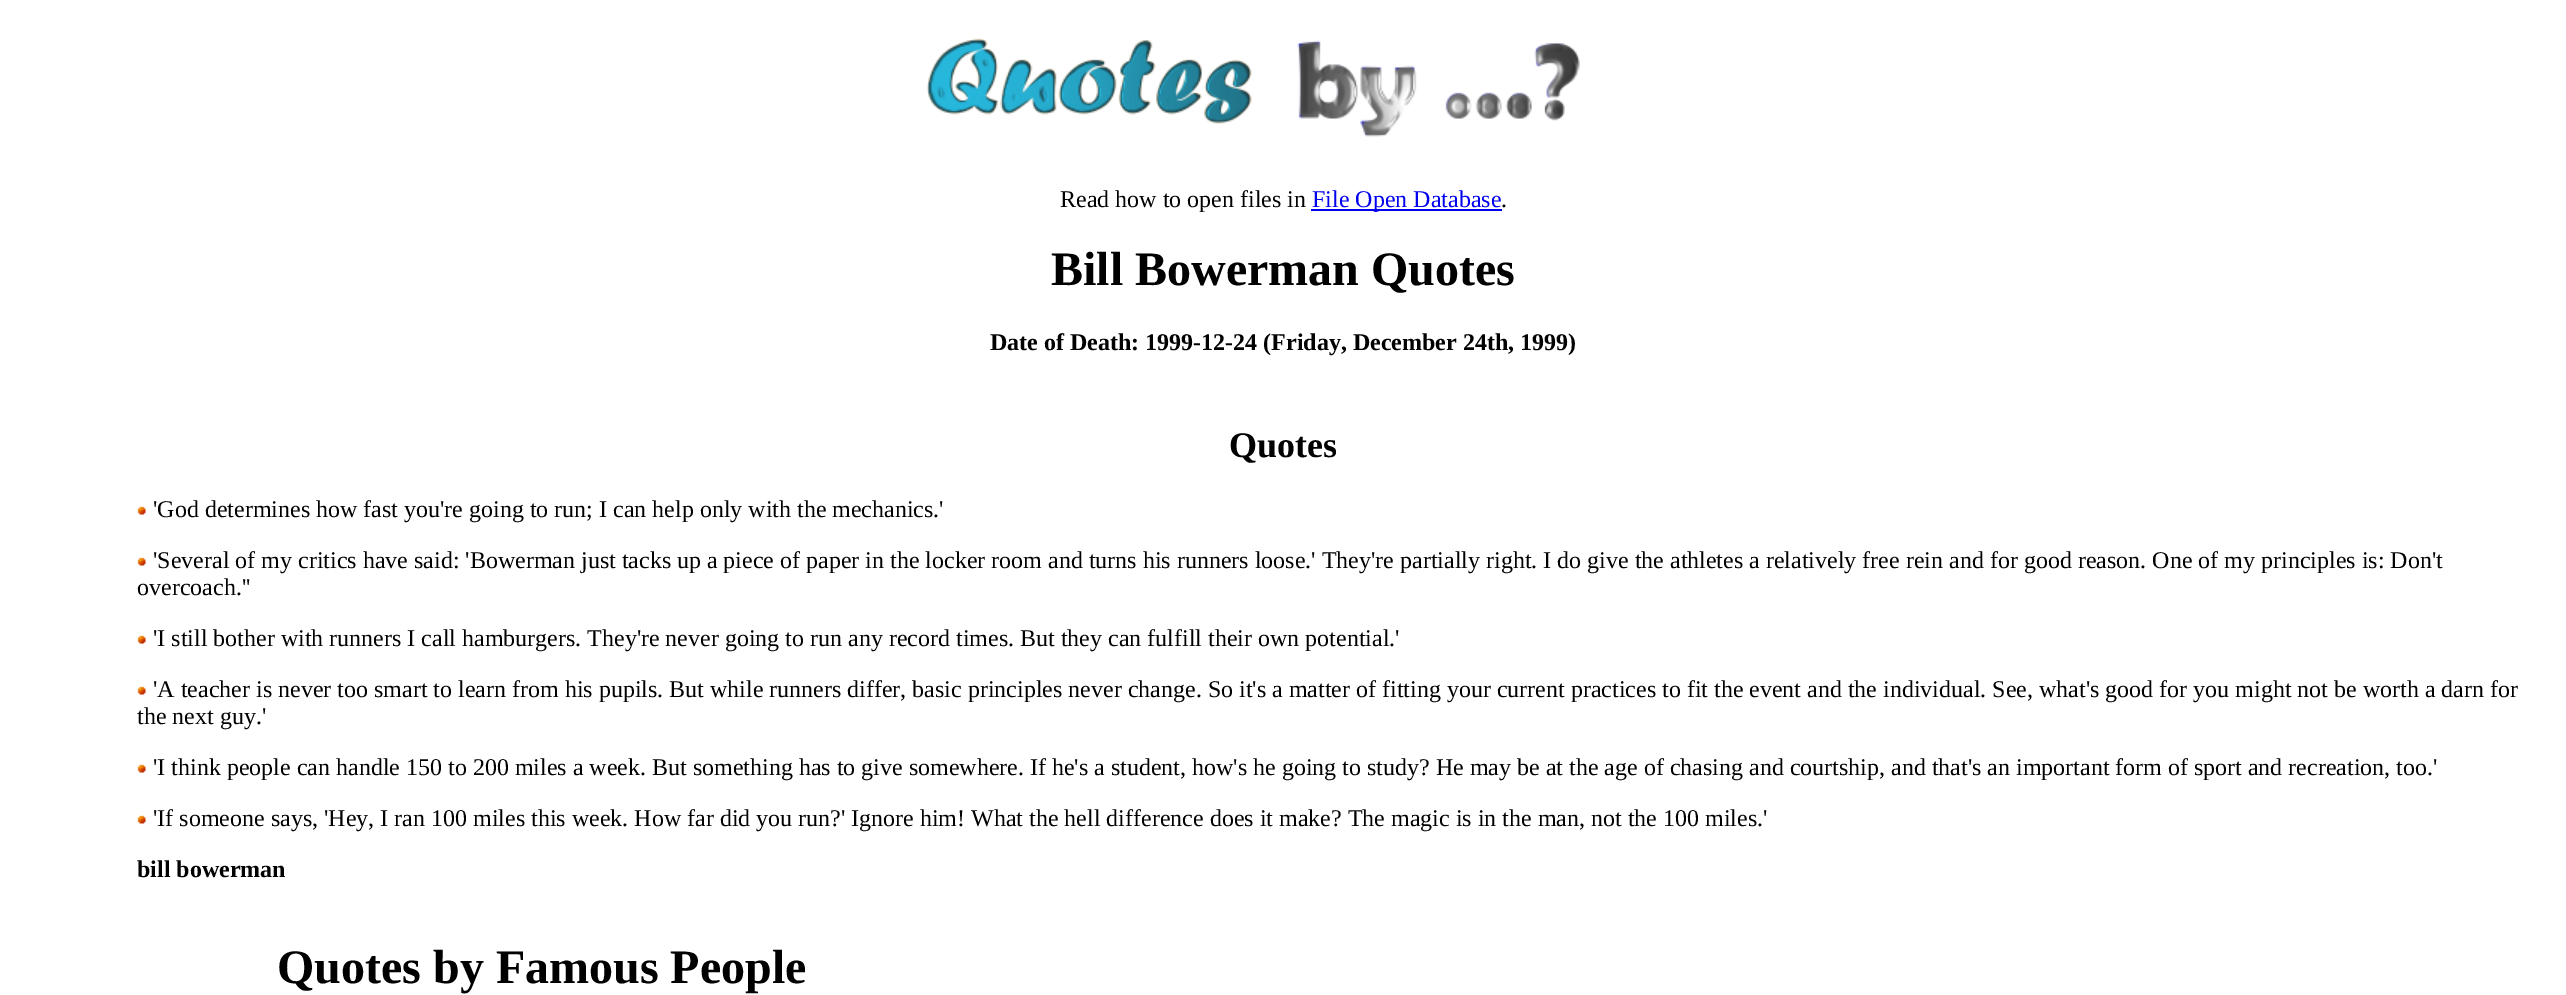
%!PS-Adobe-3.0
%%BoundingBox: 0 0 2566 995
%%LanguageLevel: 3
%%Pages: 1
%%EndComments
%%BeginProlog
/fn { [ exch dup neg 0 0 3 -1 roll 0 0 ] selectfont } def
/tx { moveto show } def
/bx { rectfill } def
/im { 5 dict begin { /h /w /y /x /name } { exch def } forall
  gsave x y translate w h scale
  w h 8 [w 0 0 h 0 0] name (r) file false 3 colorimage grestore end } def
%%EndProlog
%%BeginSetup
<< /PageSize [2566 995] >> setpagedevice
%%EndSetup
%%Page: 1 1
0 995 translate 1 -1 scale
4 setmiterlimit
1 setgray
0 0 2566 995 bx
(image0.raw) 926 38 654 99 im
/LiberationSerif-Regular 24 fn
0 setgray
(Read how to open files in) 1060 207 tx
0 0 0.933 setrgbcolor
1311 209 191 2 bx
(File Open Database) 1312 207 tx
0 setgray
(.) 1501 207 tx
/LiberationSerif-Bold 48 fn
(Bill Bowerman Quotes) 1051 285 tx
/LiberationSerif-Bold 24 fn
(Date of Death: 1999-12-24 \(Friday, December 24th, 1999\)) 990 350 tx
/LiberationSerif-Bold 36 fn
(Quotes) 1229 457 tx
(image1.raw) 137 506 9 9 im
/LiberationSerif-Regular 24 fn
('God determines how fast you're going to run; I can help only with the mechanics.') 153 517 tx
(image1.raw) 137 557 9 9 im
('Several of my critics have said: 'Bowerman just tacks up a piece of paper in the locker room and turns his runners loose.' They're partially right. I do give the athletes a relatively free rein and for good reason. One of my principles is: Don't) 153 568 tx
(overcoach.'') 137 595 tx
(image1.raw) 137 635 9 9 im
('I still bother with runners I call hamburgers. They're never going to run any record times. But they can fulfill their own potential.') 153 646 tx
(image1.raw) 137 686 9 9 im
('A teacher is never too smart to learn from his pupils. But while runners differ, basic principles never change. So it's a matter of fitting your current practices to fit the event and the individual. See, what's good for you might not be worth a darn for) 153 697 tx
(the next guy.') 137 724 tx
(image1.raw) 137 764 9 9 im
('I think people can handle 150 to 200 miles a week. But something has to give somewhere. If he's a student, how's he going to study? He may be at the age of chasing and courtship, and that's an important form of sport and recreation, too.') 153 775 tx
(image1.raw) 137 815 9 9 im
('If someone says, 'Hey, I ran 100 miles this week. How far did you run?' Ignore him! What the hell difference does it make? The magic is in the man, not the 100 miles.') 153 826 tx
/LiberationSerif-Bold 24 fn
(bill bowerman) 137 877 tx
/LiberationSerif-Bold 48 fn
(Quotes by Famous People) 277 983 tx
showpage
%%EOF
